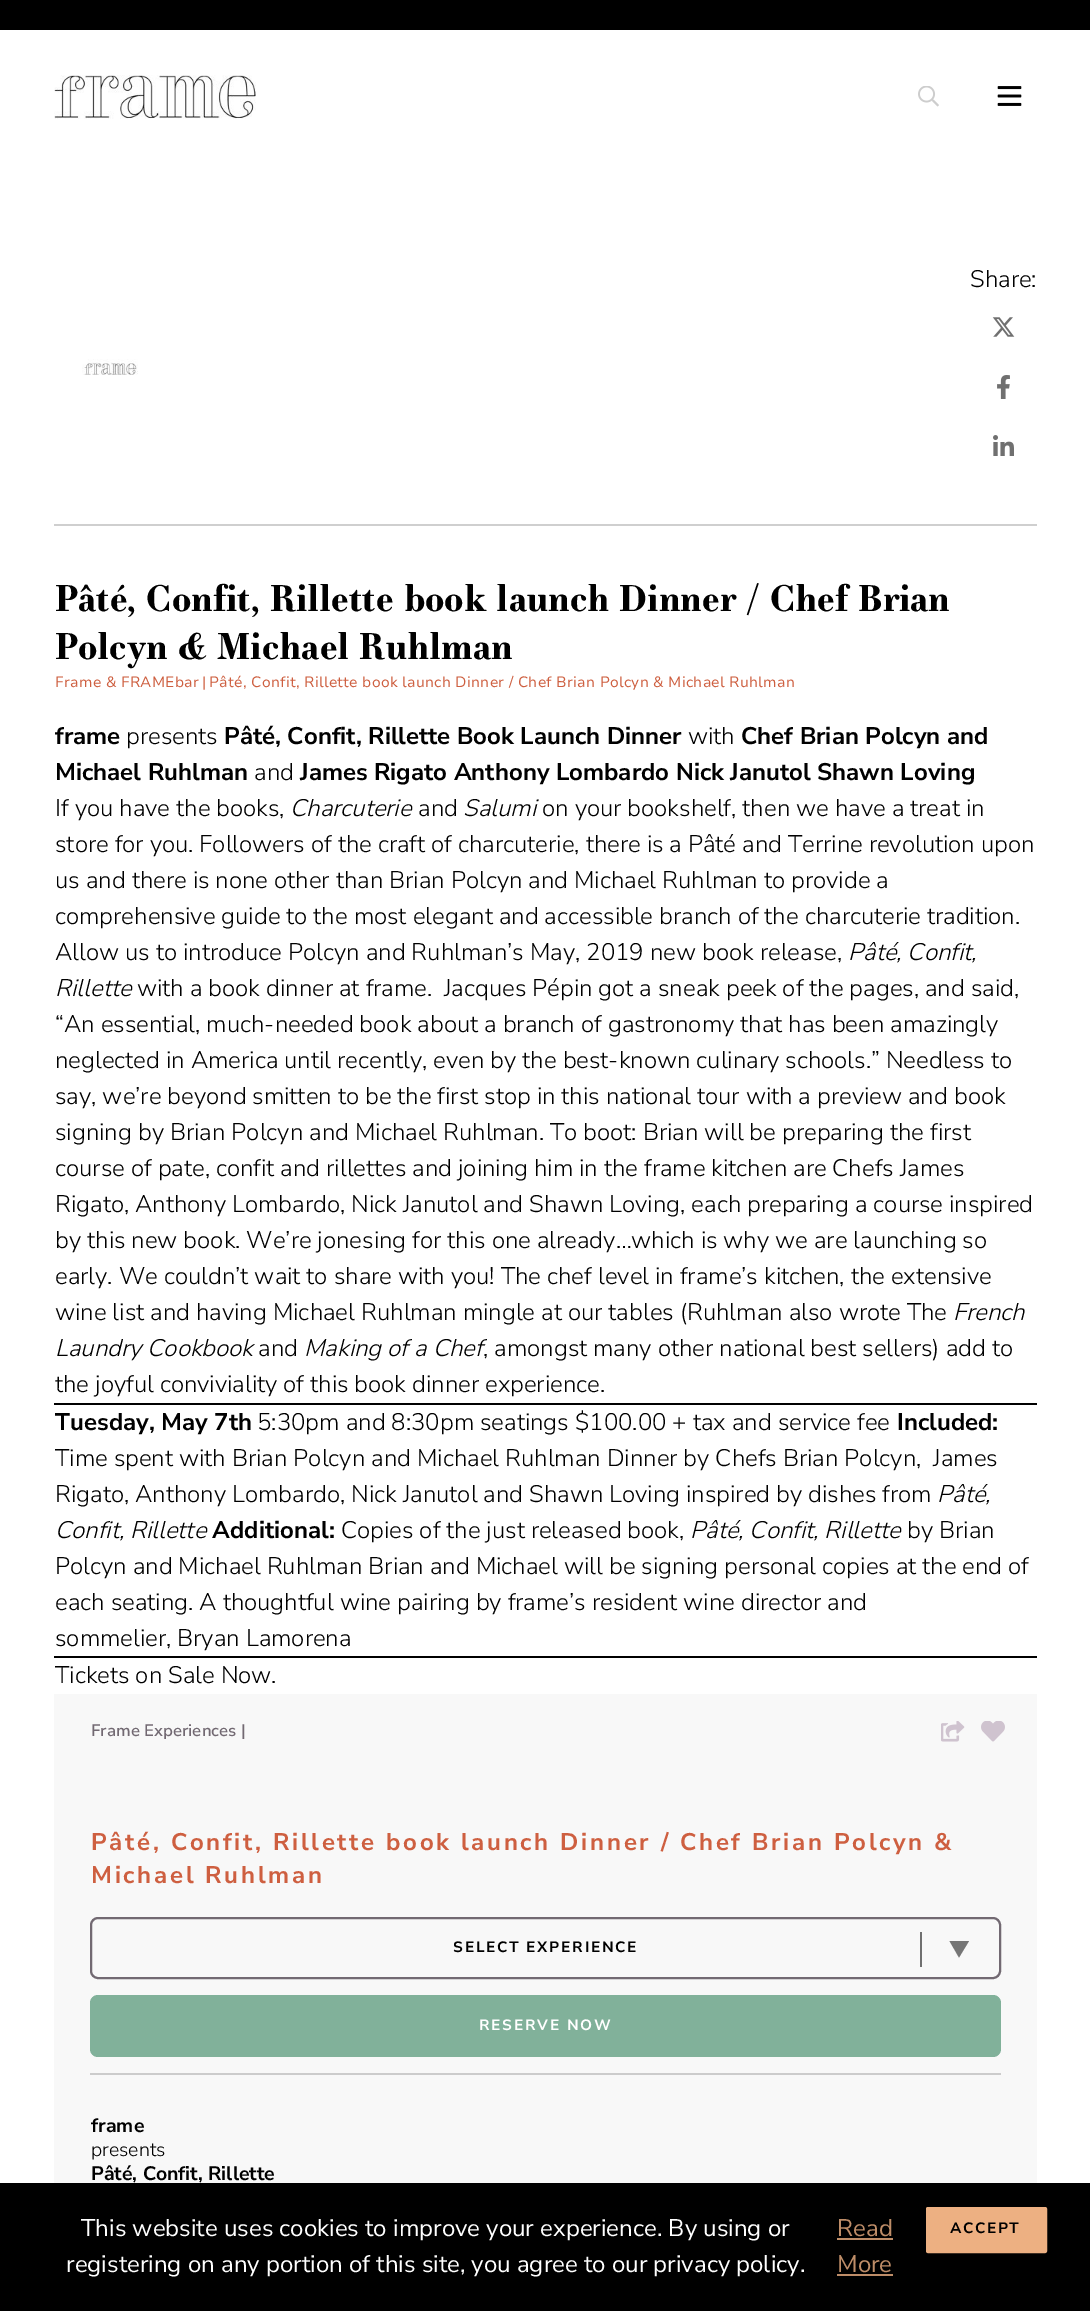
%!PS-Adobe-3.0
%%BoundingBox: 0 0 1090 2311
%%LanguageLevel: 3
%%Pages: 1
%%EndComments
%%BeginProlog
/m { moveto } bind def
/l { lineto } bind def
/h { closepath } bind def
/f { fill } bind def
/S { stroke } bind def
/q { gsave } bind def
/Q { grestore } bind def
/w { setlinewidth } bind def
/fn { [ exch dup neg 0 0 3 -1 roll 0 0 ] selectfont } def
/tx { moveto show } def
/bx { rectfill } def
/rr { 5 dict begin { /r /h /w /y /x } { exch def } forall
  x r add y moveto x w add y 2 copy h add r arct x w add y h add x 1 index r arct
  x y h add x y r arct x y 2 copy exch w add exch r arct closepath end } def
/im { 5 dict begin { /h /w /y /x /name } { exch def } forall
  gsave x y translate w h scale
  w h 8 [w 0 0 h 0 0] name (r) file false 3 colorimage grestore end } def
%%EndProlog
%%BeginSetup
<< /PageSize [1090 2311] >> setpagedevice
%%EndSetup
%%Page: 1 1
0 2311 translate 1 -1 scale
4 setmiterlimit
1 setgray
0 0 1090 2311 bx
0.973 setgray
54 1694 983 489 bx
0 setgray
0 0 1090 30 bx
(image0.raw) 54 75 202 44 im
(image1.raw) 918 86 21 21 im
(image2.raw) 997 86 25 20 im
/NunitoSans-Light 24 fn
(Share:) 970 287 tx
(image3.raw) 992 317 23 20 im
(image4.raw) 997 375 13 24 im
(image5.raw) 993 435 21 21 im
(image6.raw) 82 359 56 16 im
0.812 setgray
54 524 983 2 bx
/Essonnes-Bold 36 fn
0 setgray
(Pâté, Confit, Rillette book launch Dinner / Chef Brian) 55 611 tx
(Polcyn & Michael Ruhlman) 55 659 tx
/NunitoSans-Regular 15 fn
0.808 0.373 0.251 setrgbcolor
55 687 m 0.3 0 (Frame & FRAMEbar) ashow
202 687 m 0.3 0 (|) ashow
209 687 m 0.3 0 (Pâté, Confit, Rillette book launch Dinner / Chef Brian Polcyn & Michael Ruhlman) ashow
/NunitoSans-Bold 24 fn
0 setgray
(frame) 55 744 tx
/NunitoSans-Light 24 fn
(presents) 126 744 tx
/NunitoSans-Bold 24 fn
(Pâté, Confit, Rillette Book Launch Dinner) 224 744 tx
/NunitoSans-Light 24 fn
(with) 688 744 tx
/NunitoSans-Bold 24 fn
(Chef Brian Polcyn and) 741 744 tx
(Michael Ruhlman) 55 780 tx
/NunitoSans-Light 24 fn
(and) 254 780 tx
/NunitoSans-Bold 24 fn
(James Rigato Anthony Lombardo Nick Janutol Shawn Loving) 300 780 tx
/NunitoSans-Light 24 fn
(If you have the books,) 55 816 tx
/NunitoSans-LightItalic 24 fn
(Charcuterie) 290 816 tx
/NunitoSans-Light 24 fn
(and) 418 816 tx
/NunitoSans-LightItalic 24 fn
(Salumi) 463 816 tx
/NunitoSans-Light 24 fn
(on your bookshelf, then we have a treat in) 542 816 tx
(store for you. Followers of the craft of charcuterie, there is a Pâté and Terrine revolution upon) 55 852 tx
(us and there is none other than Brian Polcyn and Michael Ruhlman to provide a) 55 888 tx
(comprehensive guide to the most elegant and accessible branch of the charcuterie tradition.) 55 924 tx
(Allow us to introduce Polcyn and Ruhlman’s May, 2019 new book release,) 55 960 tx
/NunitoSans-LightItalic 24 fn
(Pâté, Confit,) 848 960 tx
(Rillette) 55 996 tx
/NunitoSans-Light 24 fn
(with a book dinner at frame.) 137 996 tx
(Jacques Pépin got a sneak peek of the pages, and said,) 444 996 tx
(“An essential, much-needed book about a branch of gastronomy that has been amazingly) 55 1032 tx
(neglected in America until recently, even by the best-known culinary schools.” Needless to) 55 1068 tx
(say, we’re beyond smitten to be the first stop in this national tour with a preview and book) 55 1104 tx
(signing by Brian Polcyn and Michael Ruhlman. To boot: Brian will be preparing the first) 55 1140 tx
(course of pate, confit and rillettes and joining him in the frame kitchen are Chefs James) 55 1176 tx
(Rigato, Anthony Lombardo, Nick Janutol and Shawn Loving, each preparing a course inspired) 55 1212 tx
(by this new book. We’re jonesing for this one already…which is why we are launching so) 55 1248 tx
(early. We couldn’t wait to share with you! The chef level in frame’s kitchen, the extensive) 55 1284 tx
(wine list and having Michael Ruhlman mingle at our tables \(Ruhlman also wrote The) 55 1320 tx
/NunitoSans-LightItalic 24 fn
(French) 953 1320 tx
(Laundry Cookbook) 55 1356 tx
/NunitoSans-Light 24 fn
(and) 258 1356 tx
/NunitoSans-LightItalic 24 fn
(Making of a Chef) 304 1356 tx
/NunitoSans-Light 24 fn
(, amongst many other national best sellers\) add to) 483 1356 tx
(the joyful conviviality of this book dinner experience.) 55 1392 tx
54 1403 983 2 bx
/NunitoSans-Bold 24 fn
(Tuesday, May 7th) 55 1430 tx
/NunitoSans-Light 24 fn
(5:30pm and 8:30pm seatings $100.00 + tax and service fee) 257 1430 tx
/NunitoSans-Bold 24 fn
(Included:) 897 1430 tx
/NunitoSans-Light 24 fn
(Time spent with Brian Polcyn and Michael Ruhlman Dinner by Chefs Brian Polcyn,  James) 55 1466 tx
(Rigato, Anthony Lombardo, Nick Janutol and Shawn Loving inspired by dishes from) 55 1502 tx
/NunitoSans-LightItalic 24 fn
(Pâté,) 937 1502 tx
(Confit, Rillette) 55 1538 tx
/NunitoSans-Bold 24 fn
(Additional:) 212 1538 tx
/NunitoSans-Light 24 fn
(Copies of the just released book,) 341 1538 tx
/NunitoSans-LightItalic 24 fn
(Pâté, Confit, Rillette) 690 1538 tx
/NunitoSans-Light 24 fn
(by Brian) 907 1538 tx
(Polcyn and Michael Ruhlman Brian and Michael will be signing personal copies at the end of) 55 1574 tx
(each seating. A thoughtful wine pairing by frame’s resident wine director and) 55 1610 tx
(sommelier, Bryan Lamorena) 55 1646 tx
54 1656 983 2 bx
(Tickets on Sale Now.) 55 1683 tx
/NunitoSans-SemiBold 16.5 fn
0.447 0.412 0.447 setrgbcolor
(Frame Experiences |) 91 1736 tx
(image7.raw) 941 1721 24 21 im
(image8.raw) 981 1721 24 21 im
/NunitoSans-Bold 24 fn
0.808 0.373 0.251 setrgbcolor
91 1850 m 2.7 0 (Pâté, Confit, Rillette book launch Dinner / Chef Brian Polcyn &) ashow
91 1883 m 2.7 0 (Michael Ruhlman) ashow
0.463 setgray
959 1957.5 m 949.5 1941 l 969 1941 l h f
0.447 0.412 0.447 setrgbcolor
2 w
91 1918 909 60 7 rr S
/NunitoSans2-Bold 15 fn
0 setgray
453 1952 m 1.7 0 (SELECT EXPERIENCE) ashow
0.439 setgray
920 1932 2 35 bx
0.506 0.694 0.604 setrgbcolor
90 1995 911 62 8 rr f
1 setgray
479 2030 m 1.7 0 (RESERVE NOW) ashow
0.8 setgray
90 2073 911 2 bx
/NunitoSans-Bold 19.5 fn
0 setgray
(frame) 91 2132 tx
/NunitoSans-Light 19.5 fn
(presents) 91 2156 tx
/NunitoSans-Bold 19.5 fn
(Pâté, Confit, Rillette) 91 2180 tx
0 2183 1090 128 bx
/NunitoSans2-Regular 24 fn
1 setgray
(This website uses cookies to improve your experience. By using or) 81 2236 tx
0.745 0.553 0.408 setrgbcolor
(Read) 837 2236 tx
837 2238 56 2 bx
(More) 837 2272 tx
837 2274 56 2 bx
1 setgray
(registering on any portion of this site, you agree to our privacy policy.) 66 2272 tx
0.929 0.69 0.51 setrgbcolor
927 2208 119 44 1 rr q f Q
S
/NunitoSans2-Bold 15 fn
0 setgray
950 2233 m 1.5 0 (ACCEPT) ashow
showpage
%%EOF
